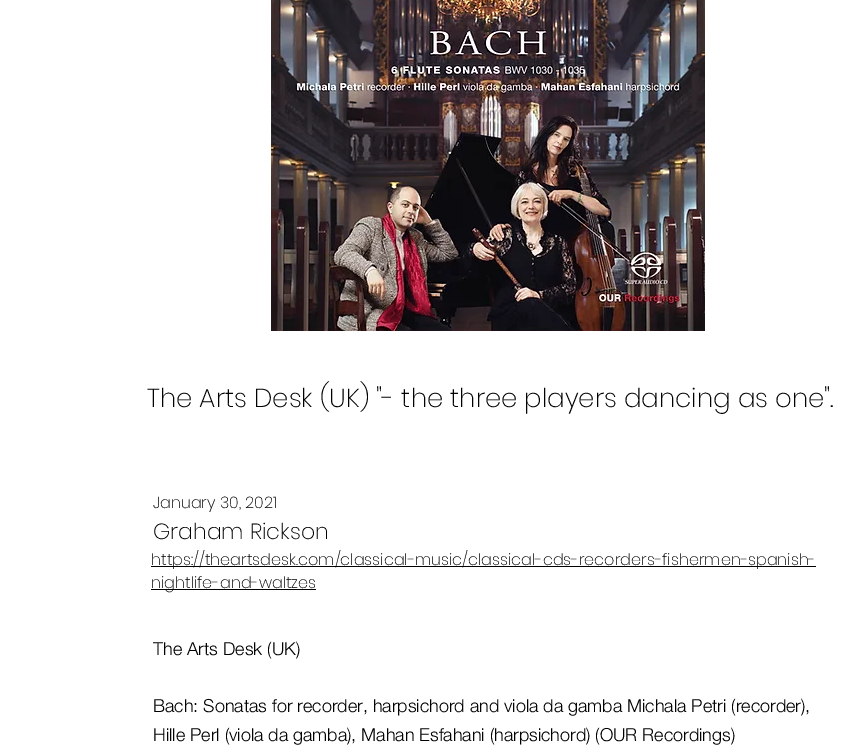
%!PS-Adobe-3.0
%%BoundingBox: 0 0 850 752
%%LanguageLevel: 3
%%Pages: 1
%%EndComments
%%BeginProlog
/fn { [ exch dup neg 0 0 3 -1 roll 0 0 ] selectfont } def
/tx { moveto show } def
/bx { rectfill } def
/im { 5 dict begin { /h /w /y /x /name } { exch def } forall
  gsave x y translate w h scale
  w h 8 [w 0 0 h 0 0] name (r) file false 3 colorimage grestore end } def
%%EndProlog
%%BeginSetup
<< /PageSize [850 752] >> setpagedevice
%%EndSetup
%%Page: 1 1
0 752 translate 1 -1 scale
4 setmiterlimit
1 setgray
0 0 850 752 bx
(image0.raw) 271 0 434 331 im
/Poppins-ExtraLight 26 fn
0 setgray
(The Arts Desk \(UK\) "- the three players dancing as one".) 147 407 tx
/Poppins-ExtraLight 16 fn
(January 30, 2021) 153 508 tx
/Poppins-ExtraLight 22 fn
(Graham Rickson) 153 539 tx
151 566 665 1 bx
/Poppins-ExtraLight 16 fn
(https://theartsdesk.com/classical-music/classical-cds-recorders-fishermen-spanish-) 151 565 tx
151 589 165 1 bx
(nightlife-and-waltzes) 151 588 tx
/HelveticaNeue-Light 18 fn
(The Arts Desk \(UK\)) 153 655 tx
(Bach: Sonatas for recorder, harpsichord and viola da gamba Michala Petri \(recorder\),) 153 712 tx
(Hille Perl \(viola da gamba\), Mahan Esfahani \(harpsichord\) \(OUR Recordings\)) 153 741 tx
showpage
%%EOF
